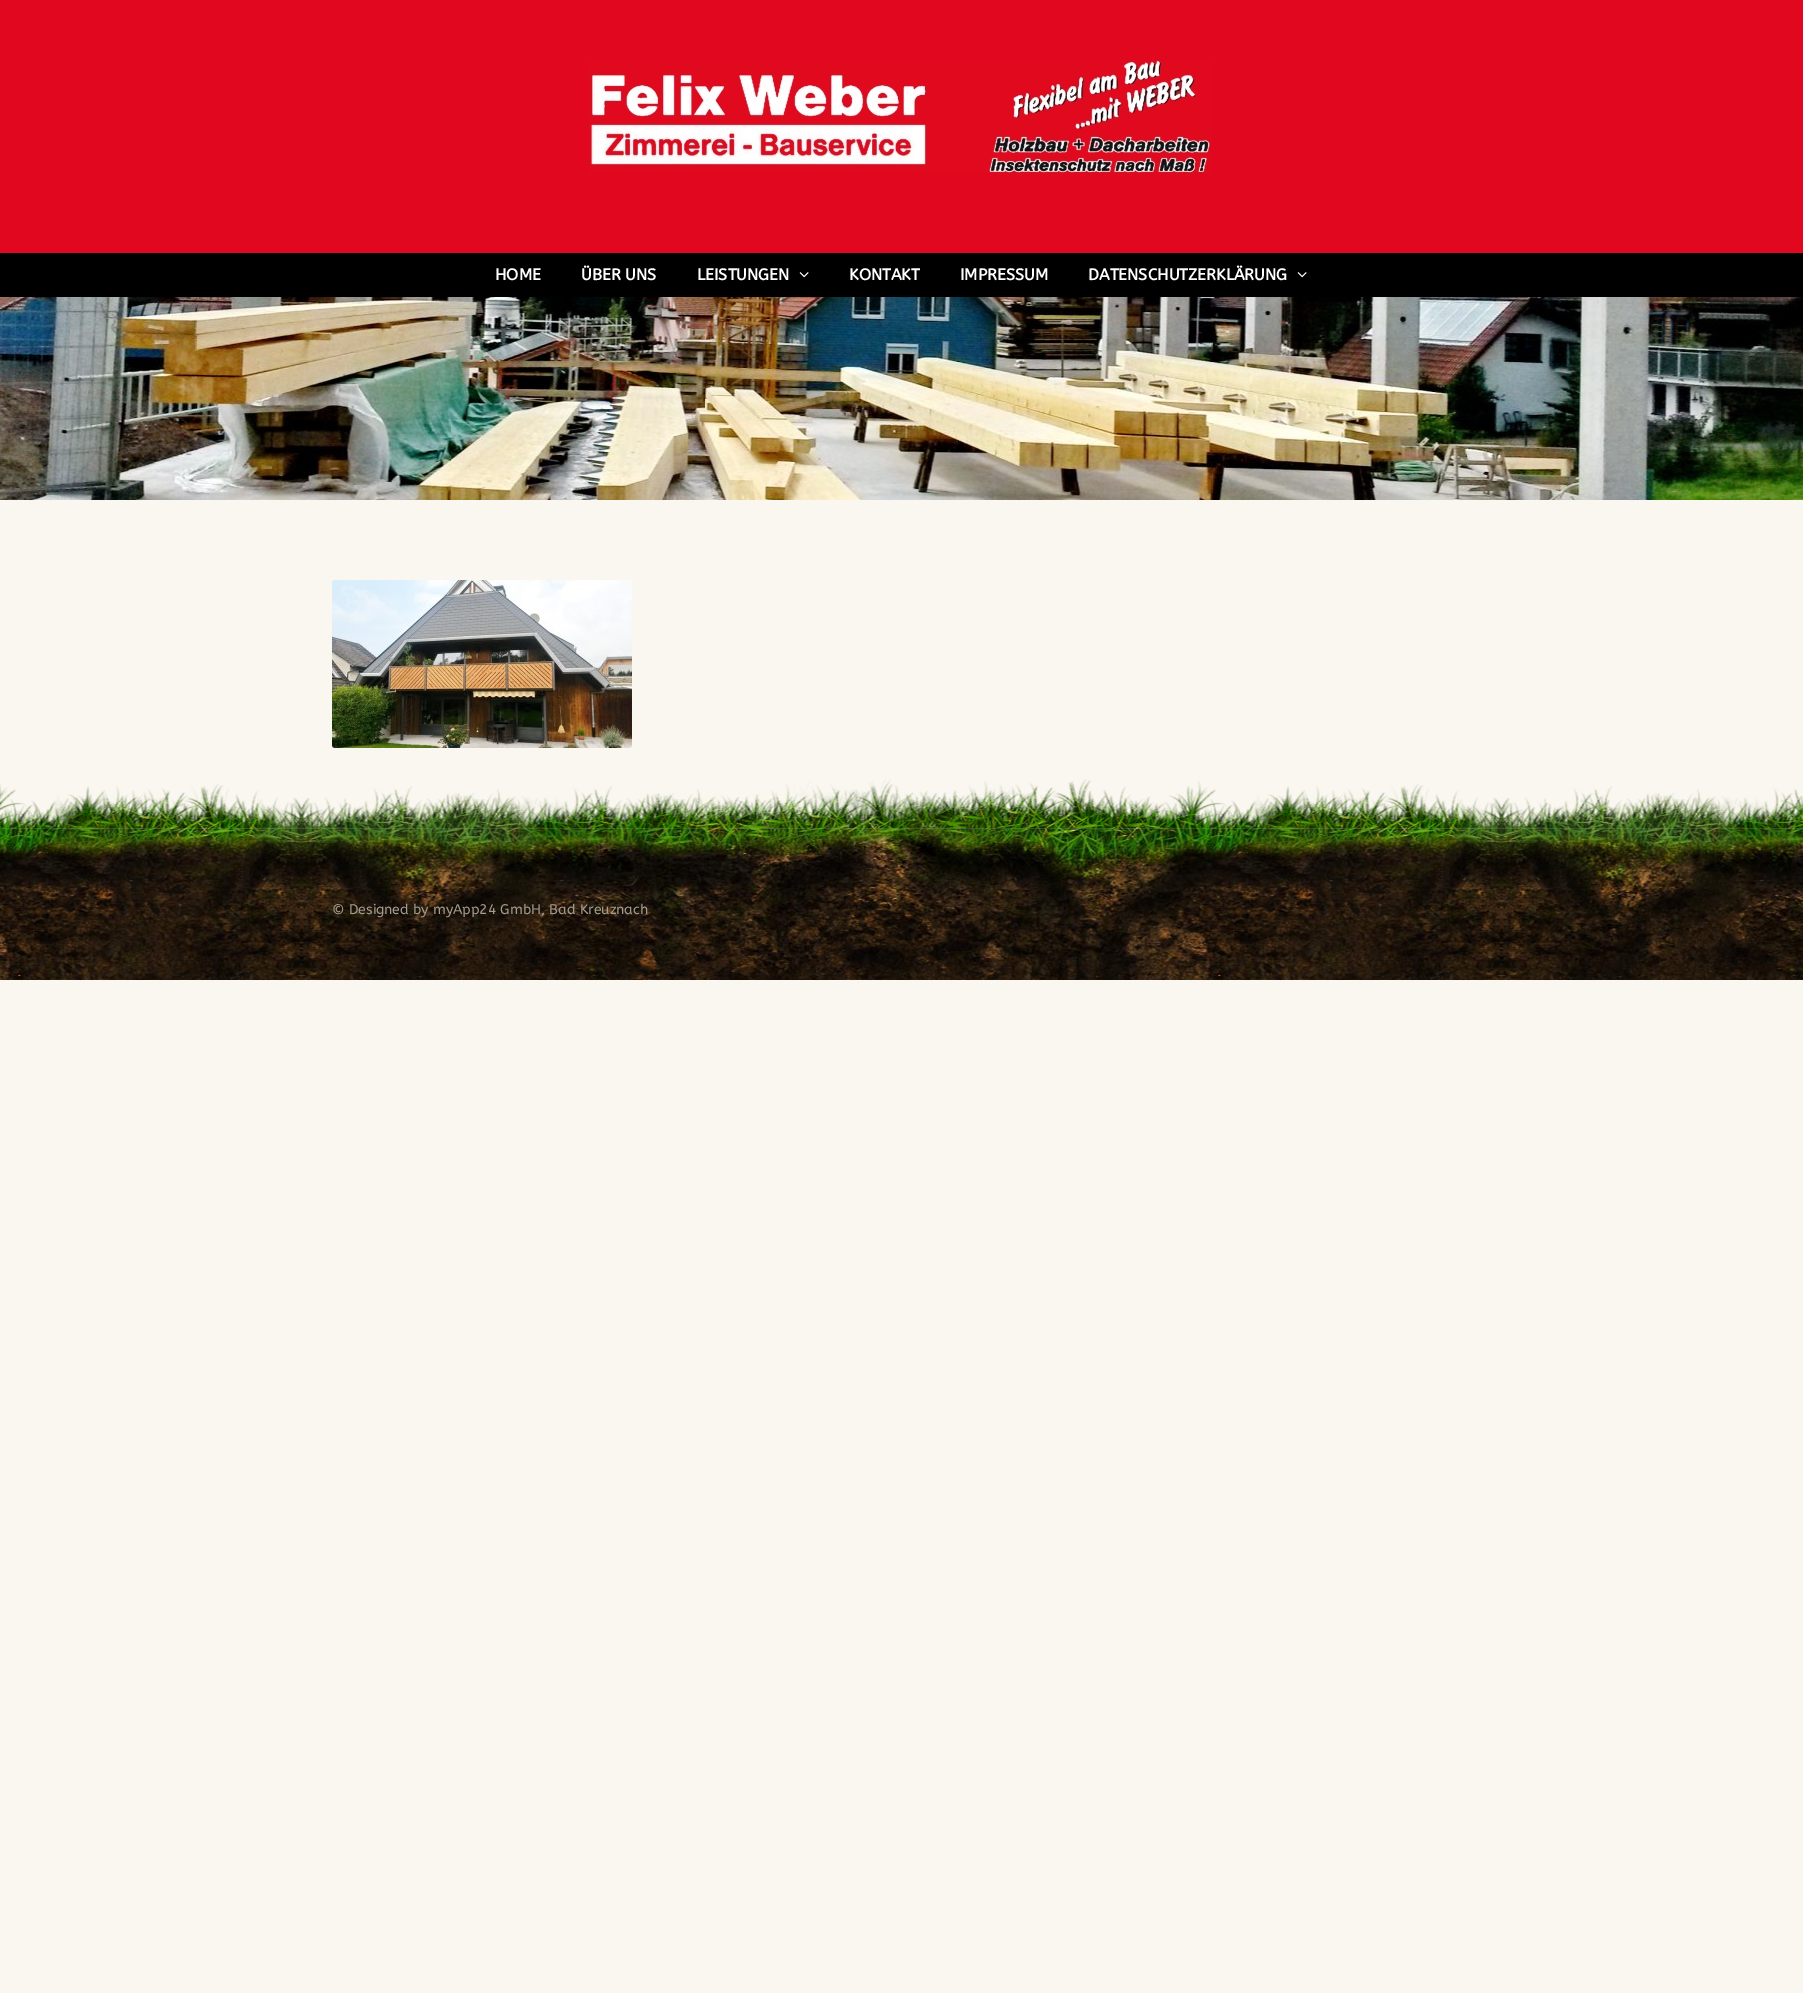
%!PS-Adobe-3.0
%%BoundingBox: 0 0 1803 1993
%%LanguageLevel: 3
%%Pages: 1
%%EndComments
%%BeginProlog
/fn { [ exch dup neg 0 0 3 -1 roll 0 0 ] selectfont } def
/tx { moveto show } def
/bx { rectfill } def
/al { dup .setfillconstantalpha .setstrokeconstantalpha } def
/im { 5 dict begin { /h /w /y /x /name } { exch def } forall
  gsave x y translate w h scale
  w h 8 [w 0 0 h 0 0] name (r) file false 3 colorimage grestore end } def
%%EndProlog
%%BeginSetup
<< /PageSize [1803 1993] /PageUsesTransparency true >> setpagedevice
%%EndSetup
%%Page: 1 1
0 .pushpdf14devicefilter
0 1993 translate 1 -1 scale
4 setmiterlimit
0.98 0.965 0.941 setrgbcolor
0 0 1803 1993 bx
0.882 0.027 0.118 setrgbcolor
0 0 1803 253 bx
(image0.raw) 589 60 622 114 im
0 setgray
0 253 1803 44 bx
/ABeeZee-Bold 16 fn
1 setgray
(HOME) 495 280 tx
(ÜBER UNS) 581 280 tx
(LEISTUNGEN) 697 280 tx
(image1.raw) 799 272 10 6 im
(KONTAKT) 849 280 tx
(IMPRESSUM) 960 280 tx
(DATENSCHUTZERKLÄRUNG) 1088 280 tx
(image1.raw) 1297 272 10 6 im
(image2.raw) 0 297 1803 203 im
(image3.raw) 332 580 300 168 im
(image4.raw) 0 828 1803 152 im
(image5.raw) 0 779 1803 49 im
0.25 al
0.639 0.608 0.553 setrgbcolor
0 828 1803 1 bx
/ABeeZee-Regular 14 fn
1 al
(© Designed by myApp24 GmbH, Bad Kreuznach) 332 914 tx
.poppdf14devicefilter showpage
%%EOF
